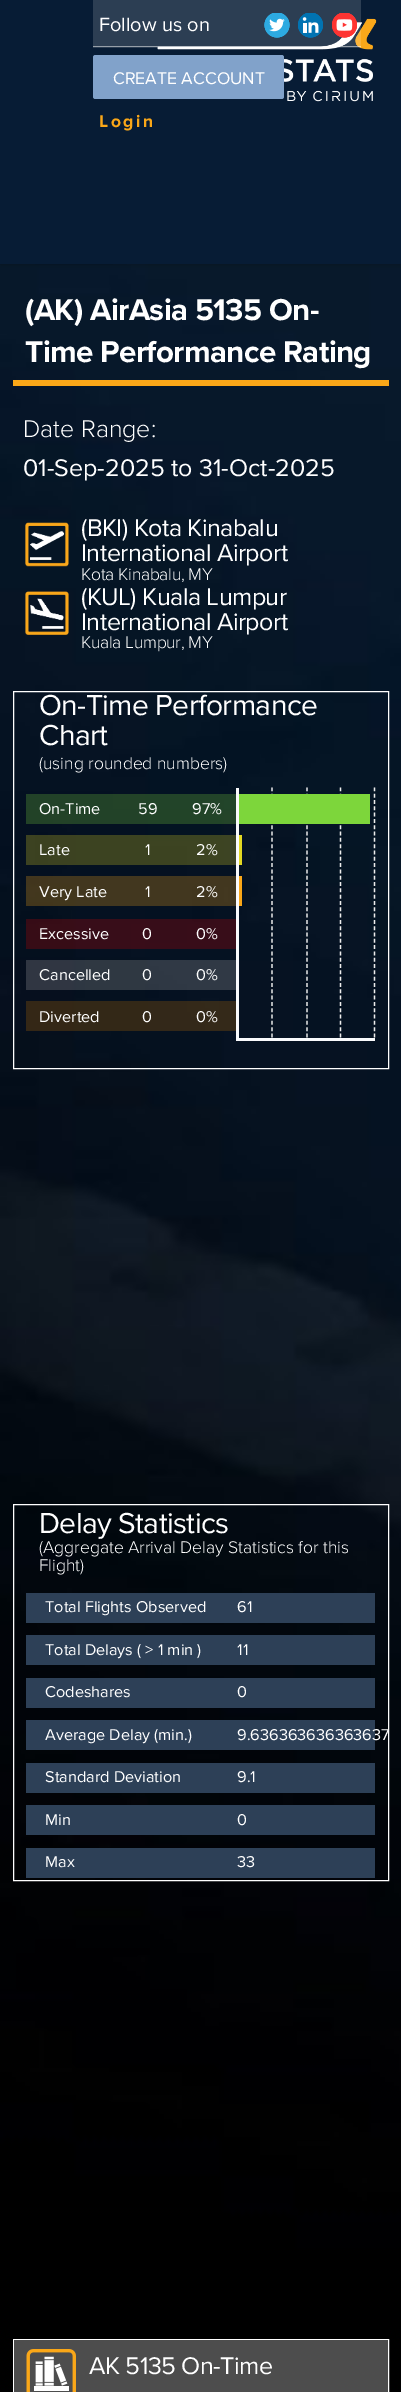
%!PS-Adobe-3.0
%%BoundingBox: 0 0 401 2392
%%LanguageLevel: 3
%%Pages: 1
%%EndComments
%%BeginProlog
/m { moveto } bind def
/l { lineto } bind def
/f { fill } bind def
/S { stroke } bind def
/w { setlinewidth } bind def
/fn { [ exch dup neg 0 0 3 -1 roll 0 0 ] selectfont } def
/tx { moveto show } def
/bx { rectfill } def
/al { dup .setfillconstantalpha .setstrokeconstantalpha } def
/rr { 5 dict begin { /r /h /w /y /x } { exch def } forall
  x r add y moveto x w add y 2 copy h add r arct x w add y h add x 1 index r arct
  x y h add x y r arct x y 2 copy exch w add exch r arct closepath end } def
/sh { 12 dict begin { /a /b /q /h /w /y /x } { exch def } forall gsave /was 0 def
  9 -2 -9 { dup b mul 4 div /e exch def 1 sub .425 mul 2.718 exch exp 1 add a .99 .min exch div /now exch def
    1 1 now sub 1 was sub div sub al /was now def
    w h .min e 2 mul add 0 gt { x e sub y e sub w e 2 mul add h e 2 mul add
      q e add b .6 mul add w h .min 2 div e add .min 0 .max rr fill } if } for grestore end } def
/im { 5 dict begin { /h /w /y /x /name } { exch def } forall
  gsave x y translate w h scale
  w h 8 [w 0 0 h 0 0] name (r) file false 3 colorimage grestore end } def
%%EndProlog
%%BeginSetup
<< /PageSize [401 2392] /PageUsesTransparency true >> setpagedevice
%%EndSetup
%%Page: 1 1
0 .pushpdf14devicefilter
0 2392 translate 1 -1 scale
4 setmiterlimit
1 setgray
0 0 401 2392 bx
(image4.raw) 0 264 401 2128 im
0 setgray
0 1 401 264 0 2.5 0.12 sh
0 1 401 264 0 4 0.12 sh
0.027 0.11 0.208 setrgbcolor
0 0 401 264 bx
(image3.raw) 157 18 220 84 im
0.15 al
1 setgray
93 0 268 48 bx
0.5 al
93 46 268 1 bx
/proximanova-Regular 20 fn
1 al
(Follow us on) 99 31 tx
(image0.raw) 264 13 26 25 im
(image1.raw) 298 13 25 25 im
(image2.raw) 332 13 25 25 im
0.506 0.635 0.792 setrgbcolor
93 55 191 44 2.5 rr f
/proximanova-Regular 17.5 fn
1 setgray
(CREATE ACCOUNT) 113 84 tx
/proximanova-Bold 17.5 fn
0.98 0.655 0.094 setrgbcolor
99 127 m 2.5 0 (Login) ashow
/proximanova-Bold 31.25 fn
1 setgray
25 320 m -0.6 0 (\(AK\) AirAsia 5135 On-) ashow
25 362 m -0.6 0 (Time Performance Rating) ashow
0.98 0.655 0.094 setrgbcolor
13 380 376 6 bx
/ProximaNova-Light 25 fn
1 setgray
(Date Range:) 23 437 tx
/proximanova-Regular 25 fn
(01-Sep-2025 to 31-Oct-2025) 23 476 tx
(image5.raw) 25 522 44 45 im
81 536 m -0.5 0 (\(BKI\) Kota Kinabalu) ashow
81 561 m -0.5 0 (International Airport) ashow
/ProximaNova-Light 17.5 fn
81 580 m -0.3 0 (Kota Kinabalu, MY) ashow
(image6.raw) 25 591 44 44 im
/proximanova-Regular 25 fn
81 605 m -0.5 0 (\(KUL\) Kuala Lumpur) ashow
81 630 m -0.5 0 (International Airport) ashow
/ProximaNova-Light 17.5 fn
81 648 m -0.3 0 (Kuala Lumpur, MY) ashow
13.5 691.5 375 377 rectstroke
/proximanova-Regular 30 fn
39 715 m -0.6 0 (On-Time Performance) ashow
39 745 m -0.6 0 (Chart) ashow
/ProximaNova-Light 17.5 fn
(\(using rounded numbers\)) 39 769 tx
0.25 al
0.49 0.839 0.231 setrgbcolor
26 794 210 30 bx
/proximanova-Regular 16.25 fn
1 al
1 setgray
(On-Time) 39 814 tx
(59) 138 814 tx
(97%) 192 814 tx
0.25 al
0.89 0.847 0.133 setrgbcolor
26 835 210 30 bx
1 al
1 setgray
(Late) 39 855 tx
(1) 145 855 tx
(2%) 196 855 tx
0.25 al
0.98 0.655 0.094 setrgbcolor
26 876 210 30 bx
1 al
1 setgray
(Very Late) 39 897 tx
(1) 145 897 tx
(2%) 196 897 tx
0.25 al
0.816 0 0 setrgbcolor
26 919 210 30 bx
1 al
1 setgray
(Excessive) 39 939 tx
(0) 142 939 tx
(0%) 196 939 tx
0.25 al
0.675 setgray
26 960 210 30 bx
1 al
1 setgray
(Cancelled) 39 980 tx
(0) 142 980 tx
(0%) 196 980 tx
0.25 al
0.737 0.431 0 setrgbcolor
26 1001 210 30 bx
1 al
1 setgray
(Diverted) 39 1022 tx
(0) 142 1022 tx
(0%) 196 1022 tx
0.976 0.98 0.988 setrgbcolor
236 1038 139 3 bx
236 788 3 252 bx
0.929 setgray
1.2 w
[3.75 2.56] 0 setdash
272 787.5 m 272 1037.5 l S
307 787.5 m 307 1037.5 l S
340.5 787.5 m 340.5 1037.5 l S
374.5 787.5 m 374.5 1037.5 l S
0.49 0.839 0.231 setrgbcolor
239 794 131 30 bx
0.89 0.847 0.133 setrgbcolor
239 835 3 30 bx
0.98 0.655 0.094 setrgbcolor
239 876 3 30 bx
1 setgray
1 w
[] 0 setdash
13.5 1504.5 375 376 rectstroke
/proximanova-Regular 30 fn
39 1533 m -0.6 0 (Delay Statistics) ashow
/ProximaNova-Light 17.5 fn
(\(Aggregate Arrival Delay Statistics for this) 39 1553 tx
(Flight\)) 39 1571 tx
0.176 0.251 0.341 setrgbcolor
26 1593 349 30 bx
/proximanova-Regular 16.25 fn
1 setgray
(Total Flights Observed) 45 1612 tx
(61) 237 1612 tx
0.176 0.251 0.341 setrgbcolor
26 1635 349 30 bx
1 setgray
(Total Delays \( > 1 min \)) 45 1655 tx
(11) 237 1655 tx
0.176 0.251 0.341 setrgbcolor
26 1678 349 30 bx
1 setgray
(Codeshares) 45 1697 tx
(0) 237 1697 tx
0.176 0.251 0.341 setrgbcolor
26 1720 349 30 bx
1 setgray
(Average Delay \(min.\)) 45 1740 tx
(9.636363636363637) 237 1740 tx
0.176 0.251 0.341 setrgbcolor
26 1763 349 30 bx
1 setgray
(Standard Deviation) 45 1782 tx
(9.1) 237 1782 tx
0.176 0.251 0.341 setrgbcolor
26 1805 349 30 bx
1 setgray
(Min) 45 1825 tx
(0) 237 1825 tx
0.176 0.251 0.341 setrgbcolor
26 1848 349 30 bx
1 setgray
(Max) 45 1867 tx
(33) 237 1867 tx
13.5 2339.5 375 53 rectstroke
0.302 setgray
14 2340 374 52 bx
(image7.raw) 26 2349 50 43 im
/proximanova-Regular 25 fn
1 setgray
89 2374 m -0.5 0 (AK 5135 On-Time) ashow
.poppdf14devicefilter showpage
%%EOF
